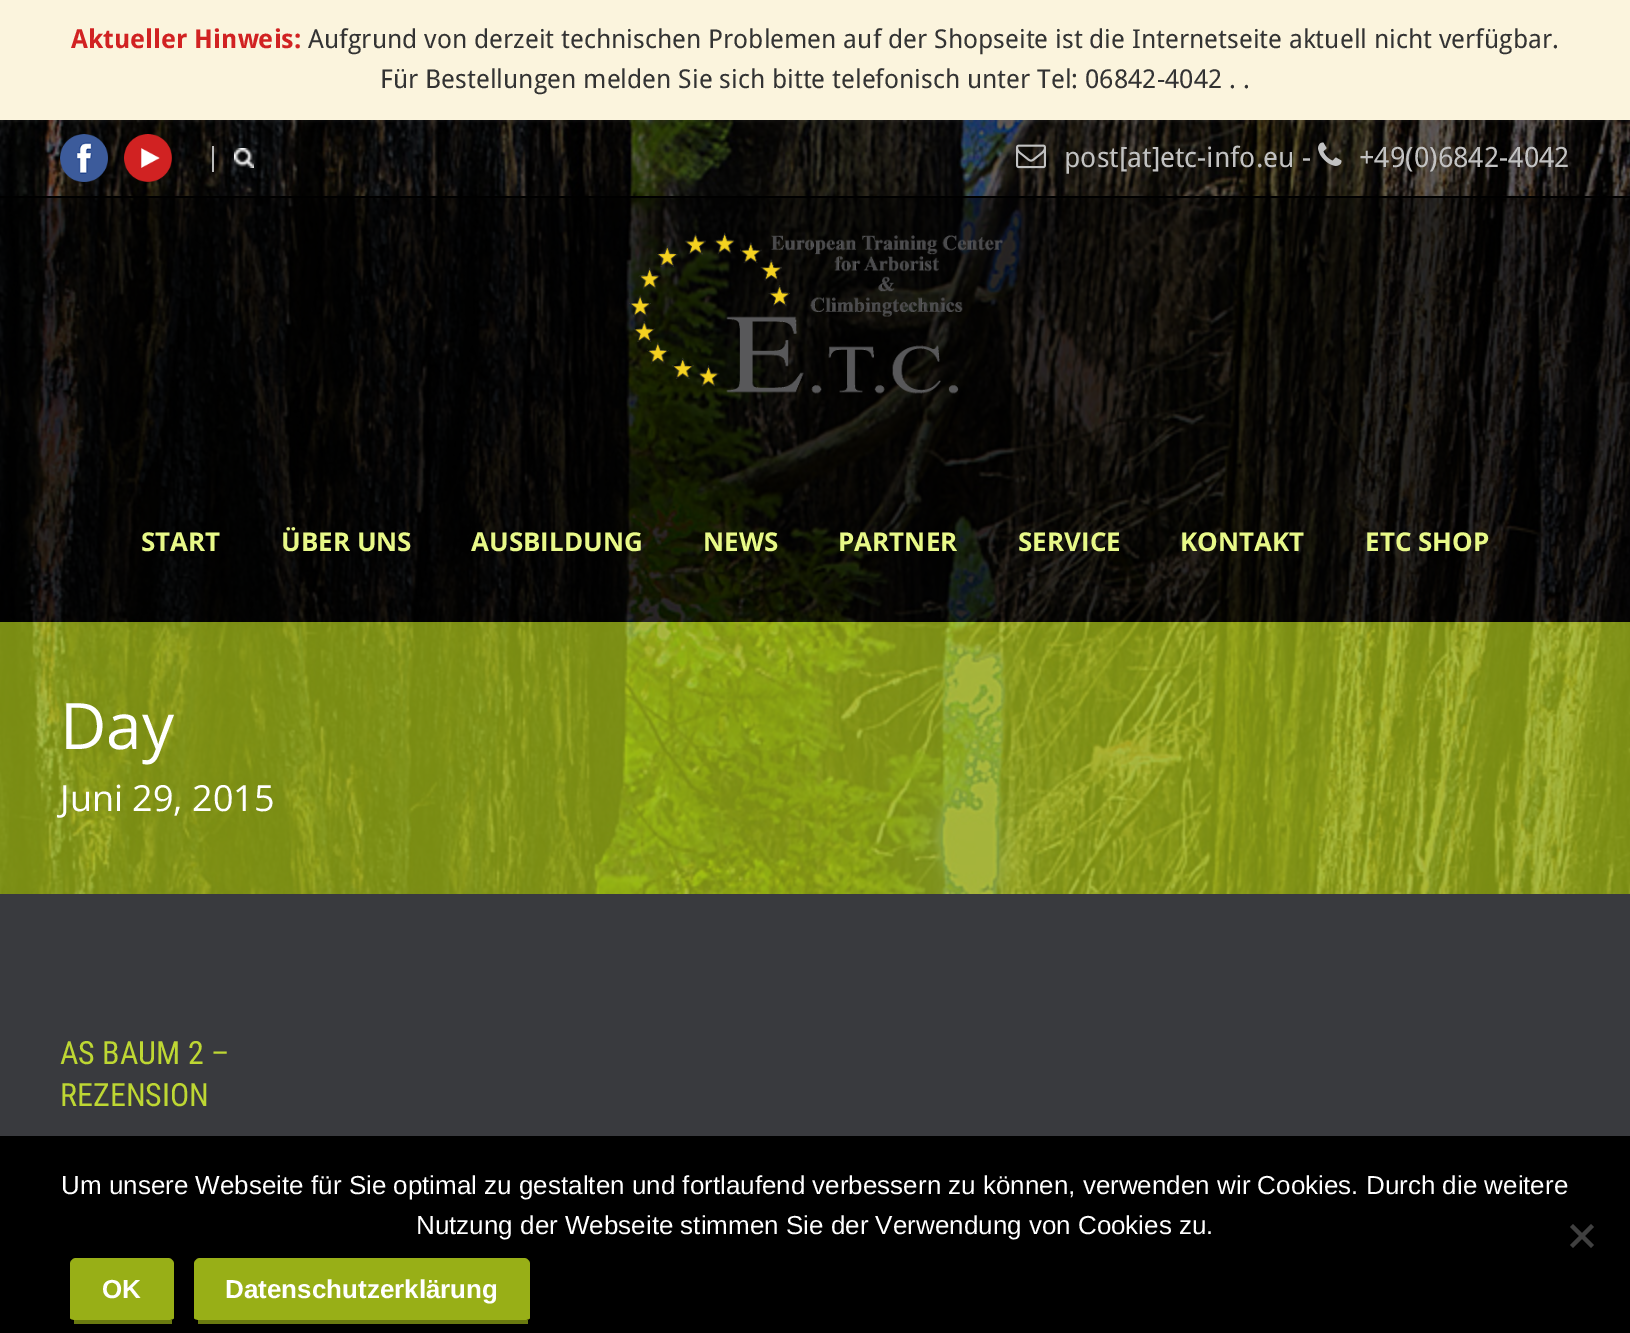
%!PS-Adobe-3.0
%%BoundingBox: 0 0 1630 1333
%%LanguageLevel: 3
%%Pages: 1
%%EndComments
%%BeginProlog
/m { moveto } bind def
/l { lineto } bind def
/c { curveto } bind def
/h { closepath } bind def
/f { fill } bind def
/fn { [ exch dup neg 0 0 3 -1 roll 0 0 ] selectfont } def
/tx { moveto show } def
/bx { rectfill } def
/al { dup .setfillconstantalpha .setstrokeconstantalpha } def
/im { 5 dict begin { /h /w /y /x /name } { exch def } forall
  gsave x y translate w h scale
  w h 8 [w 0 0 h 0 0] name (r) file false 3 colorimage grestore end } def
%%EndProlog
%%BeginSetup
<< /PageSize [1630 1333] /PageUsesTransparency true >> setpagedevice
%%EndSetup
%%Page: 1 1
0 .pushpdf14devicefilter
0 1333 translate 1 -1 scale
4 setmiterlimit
0.224 0.227 0.243 setrgbcolor
0 0 1630 1333 bx
0.984 0.957 0.867 setrgbcolor
0 0 1630 120 bx
/DroidSans-Bold 26 fn
0.82 0.133 0.133 setrgbcolor
(Aktueller Hinweis:) 71 48 tx
/DroidSans-Regular 26 fn
0.2 setgray
(Aufgrund von derzeit technischen Problemen auf der Shopseite ist die Internetseite aktuell nicht verfügbar.) 308 48 tx
(Für Bestellungen melden Sie sich bitte telefonisch unter Tel: 06842-4042 . .) 380 88 tx
(image0.raw) 0 120 1630 774 im
0.6 al
0 setgray
0 120 1630 76 bx
1 al
0 196 1630 2 bx
(image1.raw) 60 134 48 48 im
(image2.raw) 124 134 48 48 im
(image3.raw) 234 148 20 20 im
0.729 setgray
212 146 2 26 bx
(image4.raw) 1016 144 30 25 im
/DroidSans-Regular 28 fn
0.761 setgray
(post[at]etc-info.eu -) 1064 167 tx
(image5.raw) 1318 142 24 24 im
(+49\(0\)6842-4042) 1359 167 tx
0.83 al
0 setgray
0 198 1630 424 bx
1 al
(image6.raw) 629 232 374 162 im
/OpenSans-Bold 26 fn
0.91 0.976 0.533 setrgbcolor
(START) 141 551 tx
(ÜBER UNS) 281 551 tx
(AUSBILDUNG) 471 551 tx
(NEWS) 703 551 tx
(PARTNER) 838 551 tx
(SERVICE) 1018 551 tx
(KONTAKT) 1180 551 tx
(ETC SHOP) 1365 551 tx
0.8 al
0.596 0.686 0.09 setrgbcolor
0 622 1630 272 bx
/OpenSans-Regular 64 fn
1 al
1 setgray
(Day) 60 749 tx
/OpenSans-Regular 36 fn
(Juni 29, 2015) 60 811 tx
/RobotoCondensed-Regular 32 fn
0.745 0.843 0.2 setrgbcolor
(AS BAUM 2 –) 60 1064 tx
(REZENSION) 60 1106 tx
0 setgray
0 1136 1630 197 bx
/LiberationSans-Regular 26 fn
1 setgray
(Um unsere Webseite für Sie optimal zu gestalten und fortlaufend verbessern zu können, verwenden wir Cookies. Durch die weitere) 61 1194 tx
(Nutzung der Webseite stimmen Sie der Verwendung von Cookies zu.) 416 1234 tx
0.251 setgray
1591 1224 m 1594 1227 l 1573 1248 l 1570 1245 l h f
1570 1227 m 1573 1224 l 1594 1245 l 1591 1248 l h f
0.596 0.686 0.09 setrgbcolor
76 1258 m 168 1258 l 171 1258 174 1261 174 1264 c 174 1318 l 174 1319 171 1320 168 1320 c 76 1320 l 73 1320 70 1319 70 1318 c 70 1264 l 70 1261 73 1258 76 1258 c h f
0.416 0.478 0.063 setrgbcolor
74 1320 98 4 bx
/LiberationSans-Bold 26 fn
1 setgray
(OK) 102 1298 tx
0.596 0.686 0.09 setrgbcolor
200 1258 m 524 1258 l 527 1258 530 1261 530 1264 c 530 1318 l 530 1319 527 1320 524 1320 c 200 1320 l 197 1320 194 1319 194 1318 c 194 1264 l 194 1261 197 1258 200 1258 c h f
0.416 0.478 0.063 setrgbcolor
198 1320 330 4 bx
1 setgray
(Datenschutzerklärung) 225 1298 tx
.poppdf14devicefilter showpage
%%EOF
